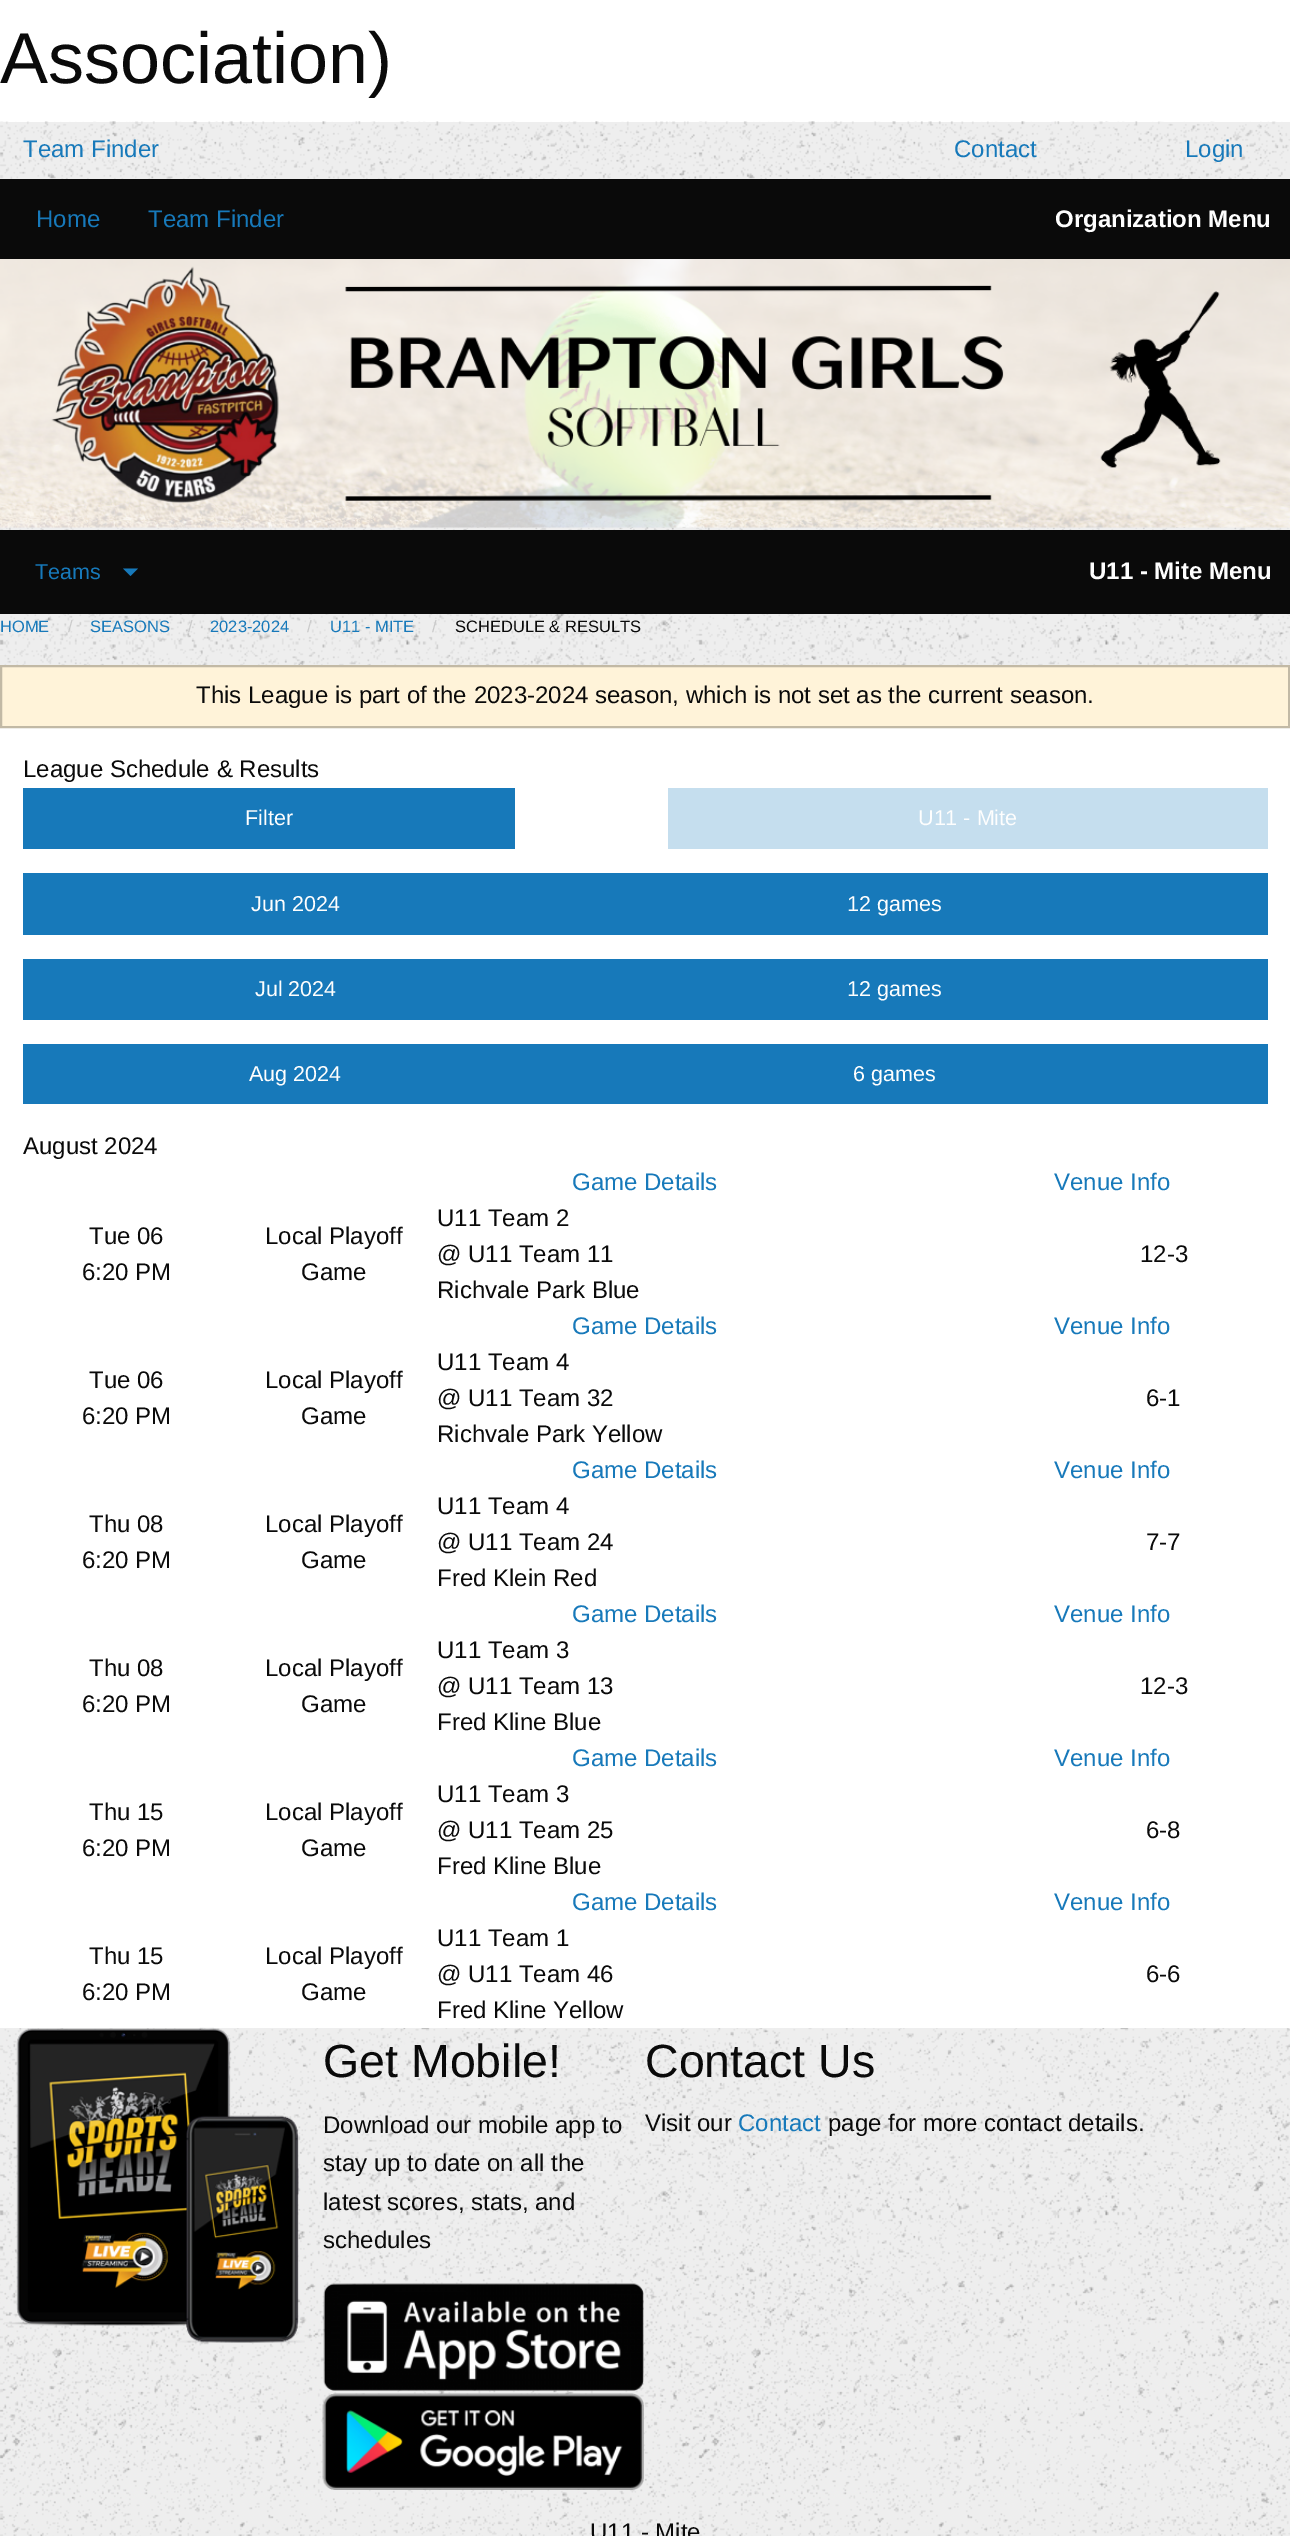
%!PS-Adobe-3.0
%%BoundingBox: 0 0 1290 2536
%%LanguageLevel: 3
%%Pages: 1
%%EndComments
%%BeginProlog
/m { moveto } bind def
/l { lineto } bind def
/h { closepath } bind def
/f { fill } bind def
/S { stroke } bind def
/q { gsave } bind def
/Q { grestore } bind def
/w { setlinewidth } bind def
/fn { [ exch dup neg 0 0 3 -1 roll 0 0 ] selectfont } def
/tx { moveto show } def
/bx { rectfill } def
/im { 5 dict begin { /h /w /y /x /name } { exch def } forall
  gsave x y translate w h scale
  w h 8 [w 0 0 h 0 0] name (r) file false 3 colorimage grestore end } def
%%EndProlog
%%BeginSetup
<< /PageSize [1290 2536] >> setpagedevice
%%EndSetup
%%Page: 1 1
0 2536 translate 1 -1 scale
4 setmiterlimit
1 setgray
0 0 1290 2536 bx
/LiberationSans-Regular 72 fn
0.039 setgray
(Association\)) 0 83 tx
0.933 setgray
0 122 1290 2414 bx
(image0.raw) 0 121 1290 2415 im
/LiberationSans-Regular 24 fn
0.09 0.475 0.729 setrgbcolor
(Team Finder) 23 157 tx
(Contact) 954 157 tx
(Login) 1185 157 tx
0.039 setgray
0 179 1290 80 bx
0.09 0.475 0.729 setrgbcolor
(Home) 36 227 tx
(Team Finder) 148 227 tx
/LiberationSans-Bold 24 fn
0.996 setgray
(Organization Menu) 1055 227 tx
(image1.raw) 0 259 1290 269 im
0.039 setgray
0 530 1290 84 bx
/LiberationSans-Regular 21.5 fn
0.09 0.475 0.729 setrgbcolor
(Teams) 35 579 tx
123 568.5 m 138 568.5 l 130.5 576 l h f
/LiberationSans-Bold 24 fn
0.996 setgray
(U11 - Mite Menu) 1089 579 tx
/LiberationSans-Regular 16.5 fn
0.09 0.475 0.729 setrgbcolor
(HOME) 0 632 tx
0.792 setgray
(/) 68 632 tx
0.09 0.475 0.729 setrgbcolor
(SEASONS) 90 632 tx
0.792 setgray
(/) 188 632 tx
0.09 0.475 0.729 setrgbcolor
(2023-2024) 210 632 tx
0.792 setgray
(/) 307 632 tx
0.09 0.475 0.729 setrgbcolor
(U11 - MITE) 330 632 tx
0.792 setgray
(/) 432 632 tx
0.039 setgray
(SCHEDULE & RESULTS) 455 632 tx
1 setgray
0 728 1290 1300 bx
1 0.953 0.851 setrgbcolor
1 666 m 1289 666 l 1289 727 l 1 727 l h q f Q
0.761 0.725 0.647 setrgbcolor
2 w
S
/LiberationSans-Regular 24 fn
0.039 setgray
(This League is part of the 2023-2024 season, which is not set as the current season.) 196 703 tx
(League Schedule & Results) 23 777 tx
0.09 0.475 0.729 setrgbcolor
23 788 492 61 bx
/LiberationSans-Regular 21.5 fn
0.996 setgray
(Filter) 245 825 tx
0.773 0.871 0.933 setrgbcolor
668 788 600 61 bx
0.996 setgray
(U11 - Mite) 918 825 tx
0.09 0.475 0.729 setrgbcolor
23 873 1245 62 bx
0.996 setgray
(Jun 2024) 251 911 tx
(12 games) 847 911 tx
0.09 0.475 0.729 setrgbcolor
23 959 1245 61 bx
0.996 setgray
(Jul 2024) 255 996 tx
(12 games) 847 996 tx
0.09 0.475 0.729 setrgbcolor
23 1044 1245 60 bx
0.996 setgray
(Aug 2024) 249 1081 tx
(6 games) 853 1081 tx
/LiberationSans-Regular 24 fn
0.039 setgray
(August 2024) 23 1154 tx
0.09 0.475 0.729 setrgbcolor
(Game Details) 572 1190 tx
(Venue Info) 1054 1190 tx
0.039 setgray
(Tue 06) 89 1244 tx
(6:20 PM) 82 1280 tx
(Local Playoff) 265 1244 tx
(Game) 301 1280 tx
(U11 Team 2) 437 1226 tx
(@ U11 Team 11) 437 1262 tx
(Richvale Park Blue) 437 1298 tx
(12-3) 1140 1262 tx
0.09 0.475 0.729 setrgbcolor
(Game Details) 572 1334 tx
(Venue Info) 1054 1334 tx
0.039 setgray
(Tue 06) 89 1388 tx
(6:20 PM) 82 1424 tx
(Local Playoff) 265 1388 tx
(Game) 301 1424 tx
(U11 Team 4) 437 1370 tx
(@ U11 Team 32) 437 1406 tx
(Richvale Park Yellow) 437 1442 tx
(6-1) 1146 1406 tx
0.09 0.475 0.729 setrgbcolor
(Game Details) 572 1478 tx
(Venue Info) 1054 1478 tx
0.039 setgray
(Thu 08) 89 1532 tx
(6:20 PM) 82 1568 tx
(Local Playoff) 265 1532 tx
(Game) 301 1568 tx
(U11 Team 4) 437 1514 tx
(@ U11 Team 24) 437 1550 tx
(Fred Klein Red) 437 1586 tx
(7-7) 1146 1550 tx
0.09 0.475 0.729 setrgbcolor
(Game Details) 572 1622 tx
(Venue Info) 1054 1622 tx
0.039 setgray
(Thu 08) 89 1676 tx
(6:20 PM) 82 1712 tx
(Local Playoff) 265 1676 tx
(Game) 301 1712 tx
(U11 Team 3) 437 1658 tx
(@ U11 Team 13) 437 1694 tx
(Fred Kline Blue) 437 1730 tx
(12-3) 1140 1694 tx
0.09 0.475 0.729 setrgbcolor
(Game Details) 572 1766 tx
(Venue Info) 1054 1766 tx
0.039 setgray
(Thu 15) 89 1820 tx
(6:20 PM) 82 1856 tx
(Local Playoff) 265 1820 tx
(Game) 301 1856 tx
(U11 Team 3) 437 1802 tx
(@ U11 Team 25) 437 1838 tx
(Fred Kline Blue) 437 1874 tx
(6-8) 1146 1838 tx
0.09 0.475 0.729 setrgbcolor
(Game Details) 572 1910 tx
(Venue Info) 1054 1910 tx
0.039 setgray
(Thu 15) 89 1964 tx
(6:20 PM) 82 2000 tx
(Local Playoff) 265 1964 tx
(Game) 301 2000 tx
(U11 Team 1) 437 1946 tx
(@ U11 Team 46) 437 1982 tx
(Fred Kline Yellow) 437 2018 tx
(6-6) 1146 1982 tx
(image2.raw) 4 2027 301 316 im
/LiberationSans-Regular 46.5 fn
(Get Mobile!) 323 2077 tx
/LiberationSans-Regular 24 fn
(Download our mobile app to) 323 2133 tx
(stay up to date on all the) 323 2171 tx
(latest scores, stats, and) 323 2210 tx
(schedules) 323 2248 tx
(image3.raw) 323 2283 321 108 im
(image4.raw) 322 2393 322 97 im
/LiberationSans-Regular 46.5 fn
(Contact Us) 645 2077 tx
/LiberationSans-Regular 24 fn
(Visit our) 645 2131 tx
0.09 0.475 0.729 setrgbcolor
(Contact) 738 2131 tx
0.039 setgray
(page for more contact details.) 828 2131 tx
(U11 - Mite) 590 2540 tx
showpage
%%EOF
